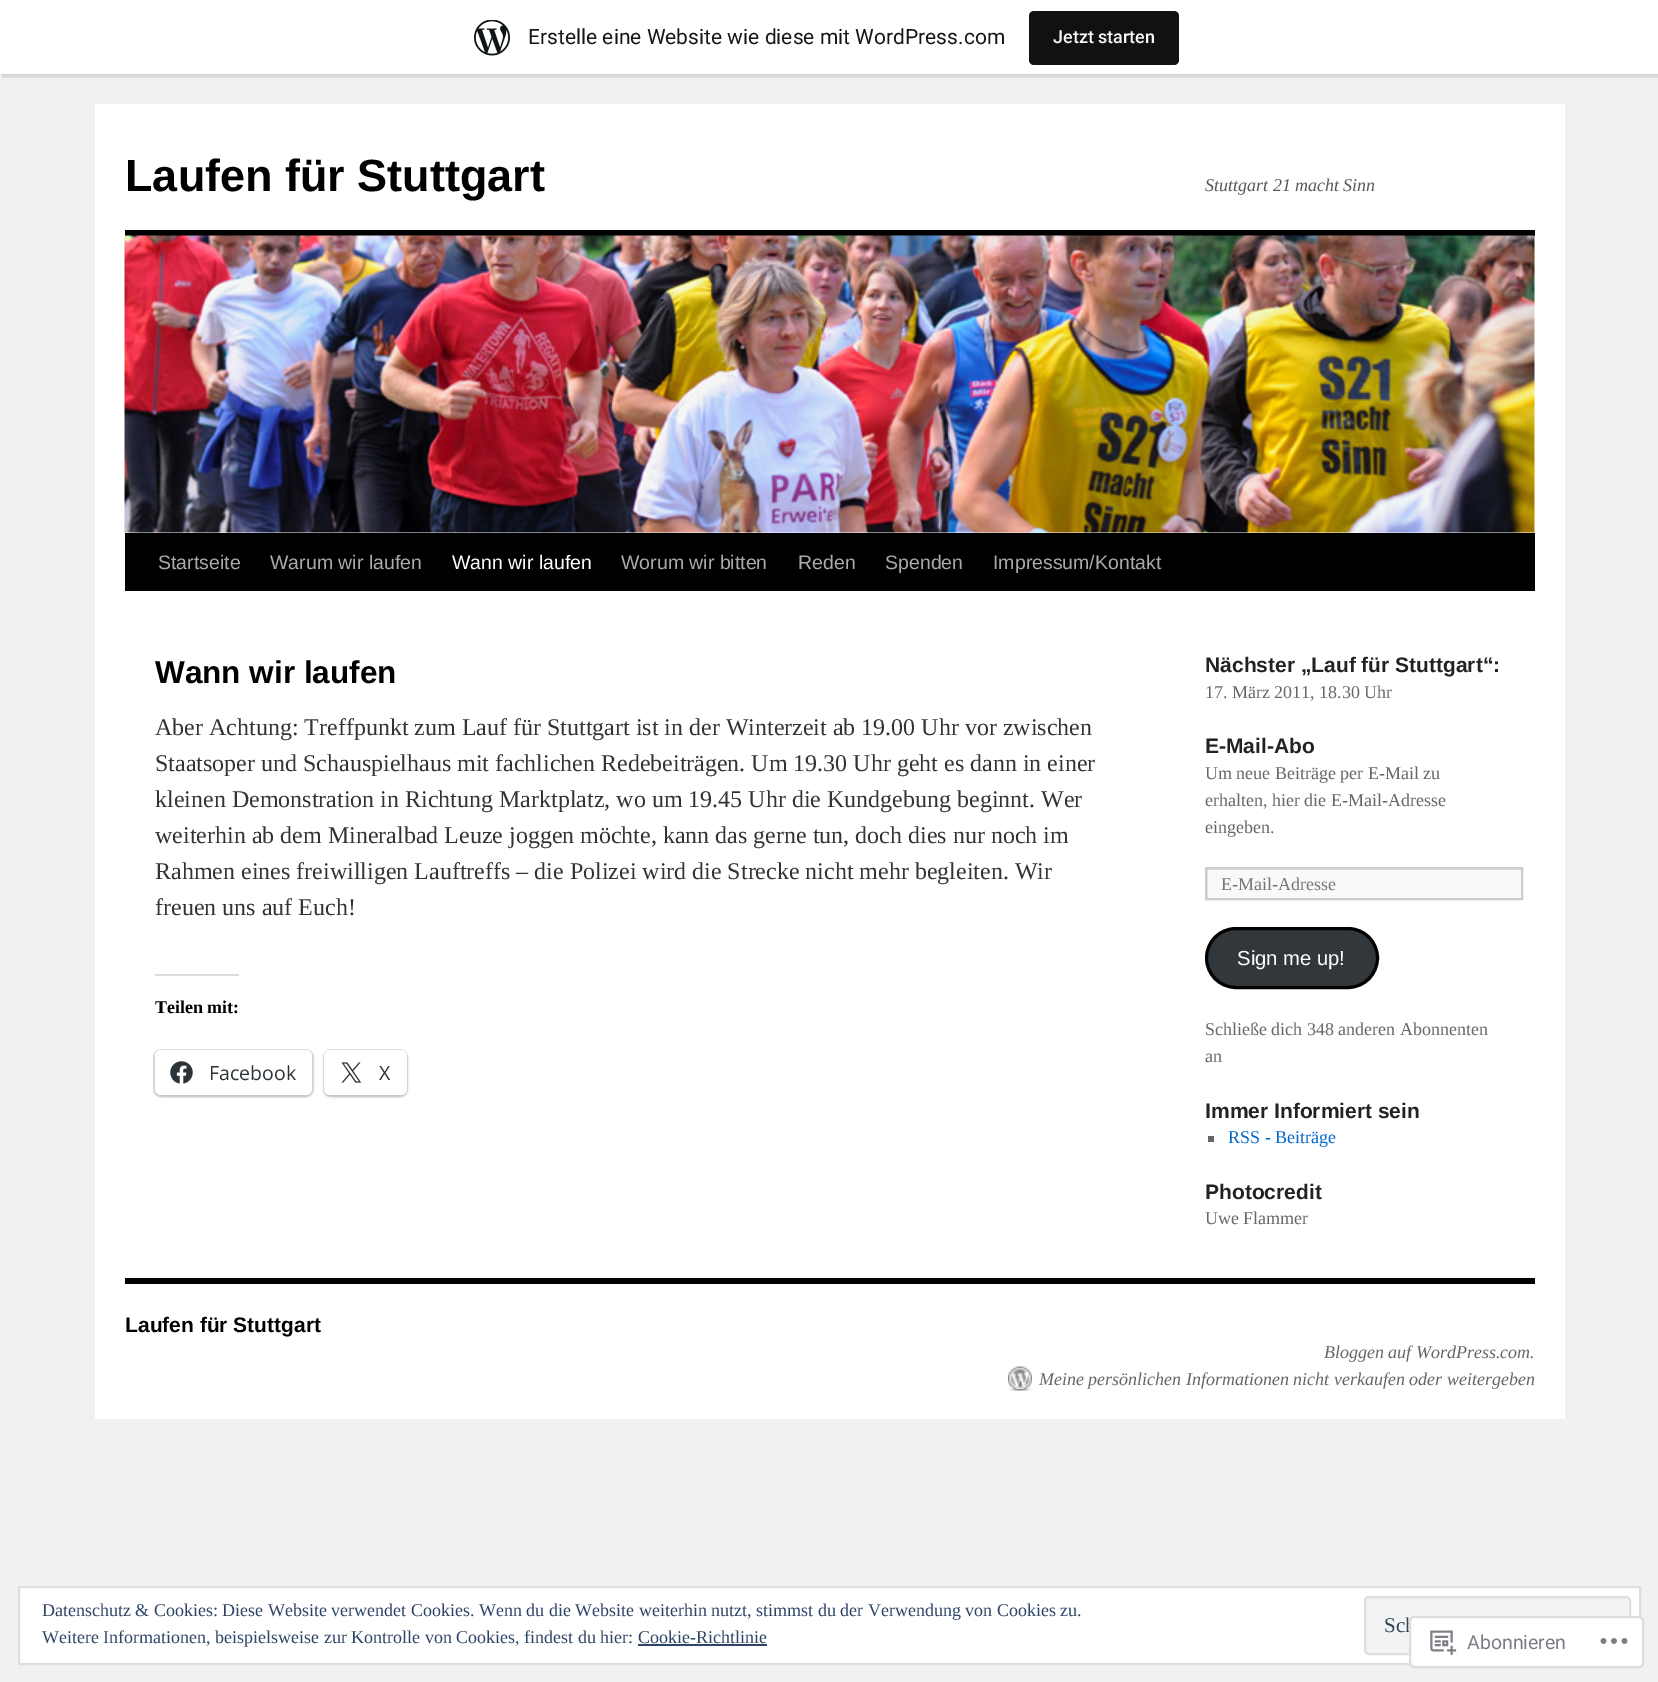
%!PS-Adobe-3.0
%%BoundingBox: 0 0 1658 1682
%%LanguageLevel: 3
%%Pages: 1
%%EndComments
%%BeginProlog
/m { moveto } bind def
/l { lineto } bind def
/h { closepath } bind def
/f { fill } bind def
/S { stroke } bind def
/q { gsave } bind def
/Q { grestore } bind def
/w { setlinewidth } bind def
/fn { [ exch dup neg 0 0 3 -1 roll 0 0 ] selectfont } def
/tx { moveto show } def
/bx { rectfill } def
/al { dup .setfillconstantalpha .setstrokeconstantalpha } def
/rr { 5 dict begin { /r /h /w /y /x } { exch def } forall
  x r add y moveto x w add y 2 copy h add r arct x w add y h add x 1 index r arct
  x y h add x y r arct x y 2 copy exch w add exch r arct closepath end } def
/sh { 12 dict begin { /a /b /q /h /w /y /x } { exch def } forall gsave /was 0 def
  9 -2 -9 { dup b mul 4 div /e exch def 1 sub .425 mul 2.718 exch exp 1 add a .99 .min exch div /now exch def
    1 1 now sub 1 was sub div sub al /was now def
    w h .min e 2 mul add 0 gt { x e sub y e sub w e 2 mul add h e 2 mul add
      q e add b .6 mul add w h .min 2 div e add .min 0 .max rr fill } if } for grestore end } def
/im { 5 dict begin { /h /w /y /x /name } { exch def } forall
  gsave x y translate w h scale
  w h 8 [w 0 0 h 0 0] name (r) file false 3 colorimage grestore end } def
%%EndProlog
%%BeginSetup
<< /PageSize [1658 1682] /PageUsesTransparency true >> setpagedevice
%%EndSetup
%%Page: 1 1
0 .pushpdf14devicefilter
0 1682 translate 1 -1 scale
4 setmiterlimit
0.945 setgray
0 0 1658 1682 bx
0 setgray
0 2 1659 73 0 1.5 0.05 sh
0.08 al
2 74 m 2 78 l 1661 78 l 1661 5 l 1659 5 l 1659 74 l h f
1 al
1 setgray
0 0 1658 74 bx
(image0.raw) 474 20 36 36 im
/Roboto-Regular 21 fn
0.09 setgray
(Erstelle eine Website wie diese mit WordPress.com) 528 44 tx
0.067 setgray
1029 11 150 54 5 rr f
/Roboto-Medium 18 fn
0.965 0.969 0.969 setrgbcolor
(Jetzt starten) 1053 43 tx
1 setgray
95 104 1470 1315 bx
/LiberationSans-Bold 45 fn
0 setgray
(Laufen für Stuttgart) 125 191 tx
/LiberationSerif-Italic 18 fn
0.349 setgray
(Stuttgart 21 macht Sinn) 1205 191 tx
0 setgray
125 230 1410 6 bx
125 533 1410 58 bx
(image1.raw) 124 235 1411 298 im
/LiberationSans-Regular 19.5 fn
0.667 setgray
(Startseite) 158 569 tx
(Warum wir laufen) 270 569 tx
1 setgray
(Wann wir laufen) 452 569 tx
0.667 setgray
(Worum wir bitten) 621 569 tx
(Reden) 798 569 tx
(Spenden) 885 569 tx
(Impressum/Kontakt) 993 569 tx
/LiberationSans-Bold 31.5 fn
0 setgray
(Wann wir laufen) 155 683 tx
/LiberationSerif-Regular 24 fn
0.2 setgray
(Aber Achtung: Treffpunkt zum Lauf für Stuttgart ist in der Winterzeit ab 19.00 Uhr vor zwischen) 155 735 tx
(Staatsoper und Schauspielhaus mit fachlichen Redebeiträgen. Um 19.30 Uhr geht es dann in einer) 155 771 tx
(kleinen Demonstration in Richtung Marktplatz, wo um 19.45 Uhr die Kundgebung beginnt. Wer) 155 807 tx
(weiterhin ab dem Mineralbad Leuze joggen möchte, kann das gerne tun, doch dies nur noch im) 155 843 tx
(Rahmen eines freiwilligen Lauftreffs – die Polizei wird die Strecke nicht mehr begleiten. Wir) 155 879 tx
(freuen uns auf Euch!) 155 915 tx
0.863 0.863 0.871 setrgbcolor
155 974 84 2 bx
/LiberationSerif-Bold 18 fn
0 setgray
(Teilen mit:) 155 1013 tx
0.878 setgray
2 w
154 1050 159 46 7 rr S
0 setgray
155 1052 157 45 6 1.5 0.12 sh
1 setgray
155 1050 157 45 6 rr f
(image2.raw) 170 1061 23 23 im
/OpenSans-Regular 19.5 fn
0.173 0.2 0.22 setrgbcolor
(Facebook) 209 1080 tx
0.878 setgray
324 1050 83 46 7 rr S
0 setgray
324 1052 83 45 6 1.5 0.12 sh
1 setgray
324 1050 83 45 6 rr f
(image3.raw) 341 1062 21 21 im
0.173 0.2 0.22 setrgbcolor
(X) 379 1080 tx
/LiberationSans-Bold 21 fn
0.133 setgray
(Nächster „Lauf für Stuttgart“:) 1205 672 tx
/LiberationSerif-Regular 18 fn
0.4 setgray
(17. März 2011, 18.30 Uhr) 1205 698 tx
/LiberationSans-Bold 21 fn
0.133 setgray
(E-Mail-Abo) 1205 753 tx
/LiberationSerif-Regular 18 fn
0.4 setgray
(Um neue Beiträge per E-Mail zu) 1205 779 tx
(erhalten, hier die E-Mail-Adresse) 1205 806 tx
(eingeben.) 1205 833 tx
0.976 setgray
1208 870 313 28 bx
q
1206 869 315 30 rectclip
0.878 setgray
1058 720 m 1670 720 l 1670 1047 l 1058 1047 l h 1208 870 m 1522 870 l 1522 900 l 1208 900 l h eofill
Q
0.8 setgray
1206 868 316 31 rectstroke
0.459 setgray
(E-Mail-Adresse) 1221 890 tx
0.196 0.216 0.235 setrgbcolor
1206.5 928.5 171 59 29.5 rr q f Q
0 setgray
3 w
S
/LiberationSans-Regular 20.25 fn
1 setgray
(Sign me up!) 1237 965 tx
/LiberationSerif-Regular 18 fn
0.4 setgray
(Schließe dich 348 anderen Abonnenten) 1205 1035 tx
(an) 1205 1062 tx
/LiberationSans-Bold 21 fn
0.133 setgray
(Immer Informiert sein) 1205 1118 tx
0.4 setgray
1208 1136 6 6 bx
/LiberationSerif-Regular 18 fn
0 0.4 0.8 setrgbcolor
(RSS - Beiträge) 1228 1143 tx
/LiberationSans-Bold 21 fn
0.133 setgray
(Photocredit) 1205 1199 tx
/LiberationSerif-Regular 18 fn
0.4 setgray
(Uwe Flammer) 1205 1224 tx
0 setgray
125 1278 1410 6 bx
/LiberationSans-Bold 21 fn
(Laufen für Stuttgart) 125 1332 tx
/LiberationSerif-Italic 18 fn
0.4 setgray
(Bloggen auf WordPress.com.) 1324 1358 tx
(image4.raw) 1008 1366 24 25 im
(Meine persönlichen Informationen nicht verkaufen oder weitergeben) 1039 1385 tx
1 setgray
19 1587 m 1640 1587 l 1640 1664 l 19 1664 l h q f Q
0.871 setgray
2 w
S
/LiberationSerif-Regular 18 fn
0.18 0.267 0.404 setrgbcolor
(Datenschutz & Cookies: Diese Website verwendet Cookies. Wenn du die Website weiterhin nutzt, stimmst du der Verwendung von Cookies zu.) 42 1616 tx
0.953 setgray
1365 1597 265 57 4 rr q f Q
0.871 setgray
S
/LiberationSerif-Regular 21 fn
0.18 0.267 0.325 setrgbcolor
(Sch) 1384 1632 tx
/LiberationSerif-Regular 18 fn
0.18 0.267 0.404 setrgbcolor
(Weitere Informationen, beispielsweise zur Kontrolle von Cookies, findest du hier: Cookie-Richtlinie) 42 1643 tx
638 1644 129 2 bx
0.98 al
1 setgray
1409 1616 235 52 5 rr f
0.863 0.863 0.871 setrgbcolor
1410 1617 233 50 4 rr S
1 al
(image5.raw) 1430 1630 27 25 im
/Roboto-Regular 19.5 fn
0.478 0.494 0.518 setrgbcolor
(Abonnieren) 1467 1649 tx
(image6.raw) 1600 1638 28 6 im
.poppdf14devicefilter showpage
%%EOF
